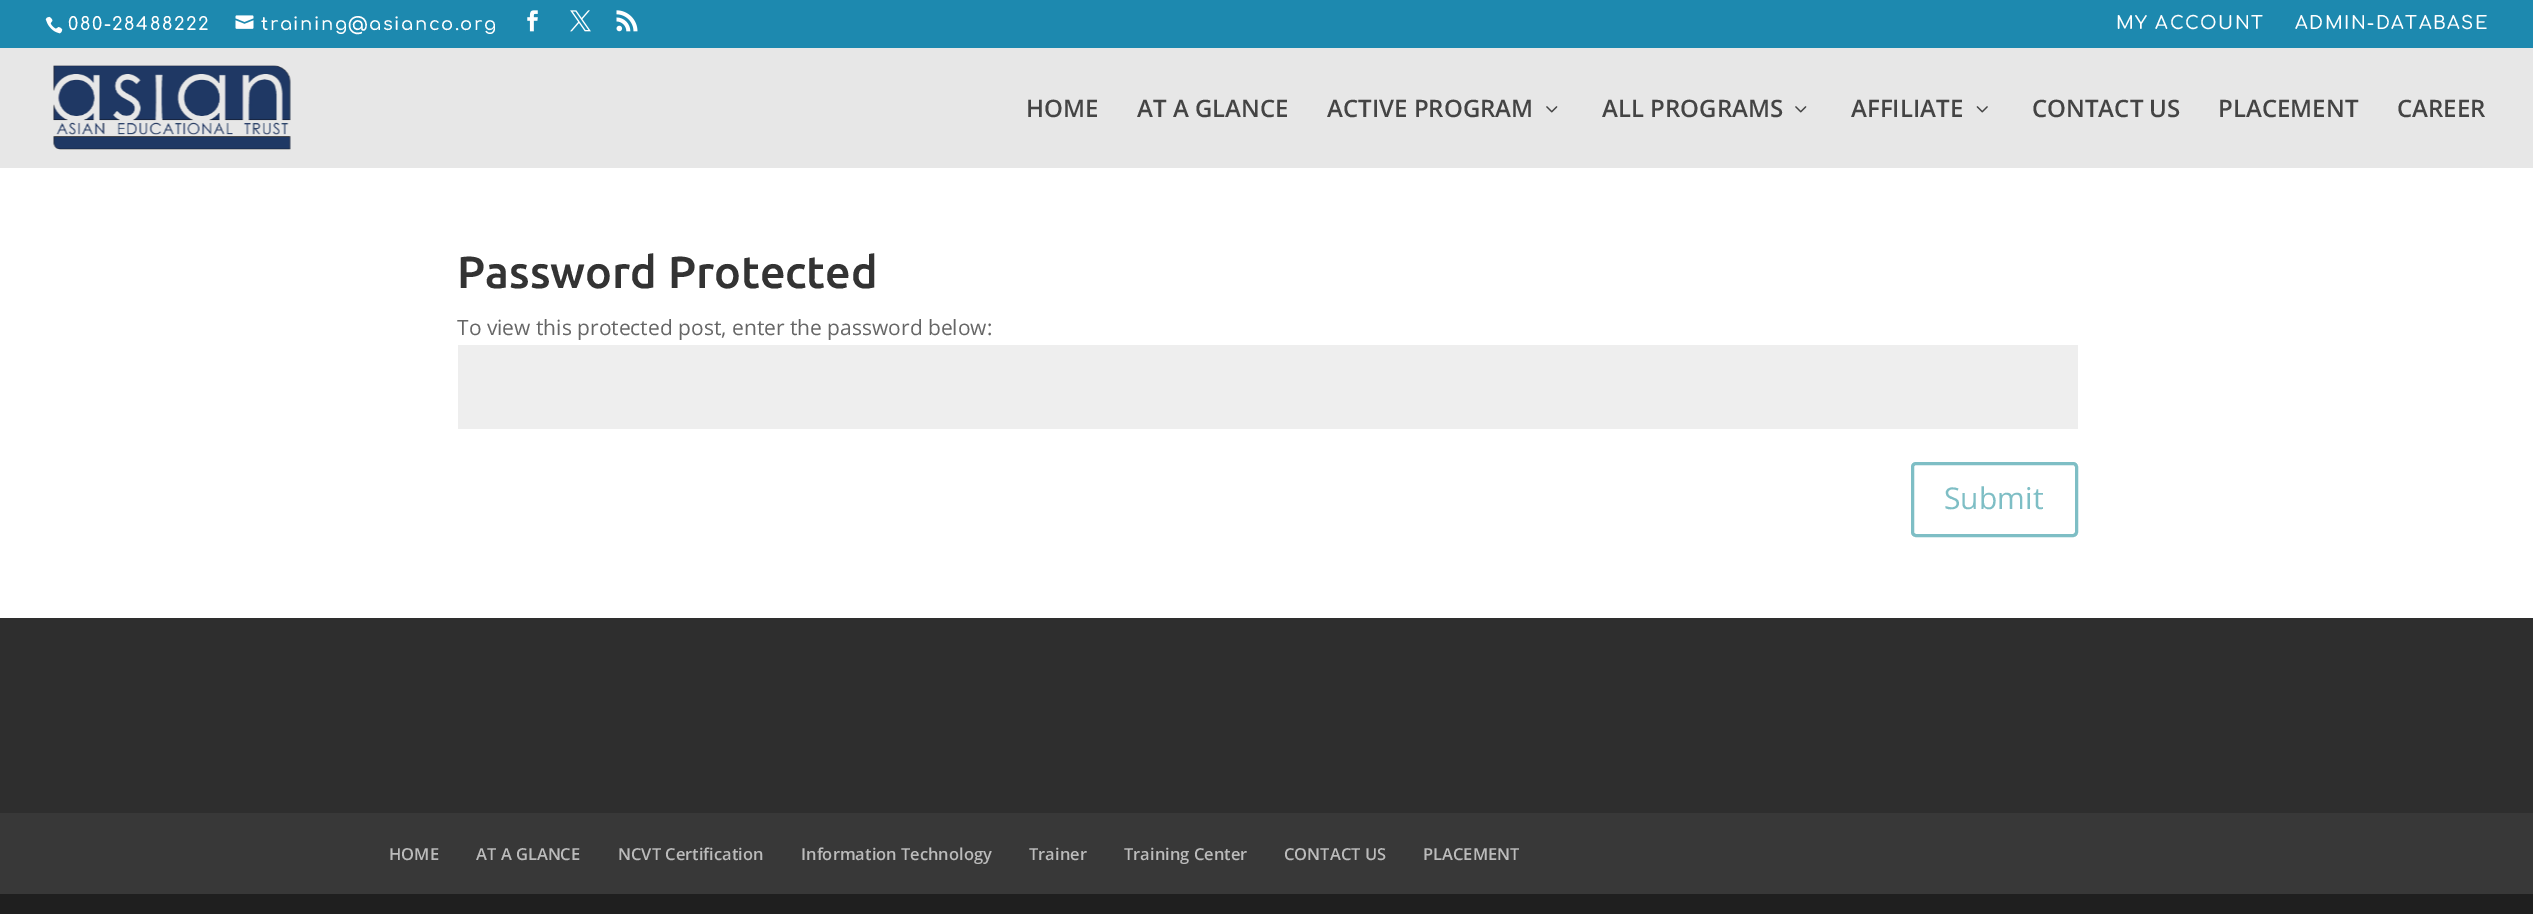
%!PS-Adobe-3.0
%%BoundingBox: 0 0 2533 914
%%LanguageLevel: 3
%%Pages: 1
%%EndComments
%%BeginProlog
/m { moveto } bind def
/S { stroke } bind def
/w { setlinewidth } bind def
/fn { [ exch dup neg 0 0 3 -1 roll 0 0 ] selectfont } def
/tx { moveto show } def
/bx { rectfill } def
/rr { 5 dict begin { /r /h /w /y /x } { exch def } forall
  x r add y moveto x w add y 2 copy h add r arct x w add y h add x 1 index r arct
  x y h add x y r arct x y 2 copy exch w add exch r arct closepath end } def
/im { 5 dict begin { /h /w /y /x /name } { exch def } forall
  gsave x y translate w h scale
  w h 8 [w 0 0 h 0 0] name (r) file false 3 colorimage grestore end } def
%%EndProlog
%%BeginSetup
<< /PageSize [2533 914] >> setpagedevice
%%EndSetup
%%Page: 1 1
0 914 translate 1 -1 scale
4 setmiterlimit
1 setgray
0 0 2533 914 bx
0.114 0.537 0.686 setrgbcolor
0 0 2533 48 bx
(image0.raw) 45 16 18 18 im
/Comfortaa-SemiBold 18 fn
1 setgray
68 30 m 1.5 0 (080-28488222) ashow
(image1.raw) 235 15 19 14 im
261 30 m 1.5 0 (training@asianco.org) ashow
(image2.raw) 527 10 11 22 im
(image3.raw) 570 10 21 22 im
(image4.raw) 616 10 22 22 im
2116 29 m 1.5 0 (MY ACCOUNT) ashow
2295 29 m 1.5 0 (ADMIN-DATABASE) ashow
0.906 setgray
0 48 2533 120 bx
(image5.raw) 53 65 238 85 im
/OpenSans-SemiBold 24 fn
0.267 setgray
(HOME) 1026 117 tx
(AT A GLANCE) 1137 117 tx
(ACTIVE PROGRAM) 1327 117 tx
(image6.raw) 1546 106 12 7 im
(ALL PROGRAMS) 1602 117 tx
(image6.raw) 1795 106 12 7 im
(AFFILIATE) 1851 117 tx
(image7.raw) 1976 106 12 7 im
(CONTACT US) 2032 117 tx
(PLACEMENT) 2218 117 tx
(CAREER) 2397 117 tx
/Ubuntu-Medium 45 fn
0.2 setgray
(Password Protected) 457 288 tx
/OpenSans-Regular 21 fn
0.4 setgray
(To view this protected post, enter the password below:) 457 335 tx
0.933 setgray
458 345 1620 84 bx
0.494 0.745 0.773 setrgbcolor
3 w
1912.5 463.5 164 72 3.5 rr S
/OpenSans-Regular 30 fn
(Submit) 1944 509 tx
0.18 setgray
0 618 2533 195 bx
0.22 setgray
0 813 2533 81 bx
/OpenSans-SemiBold 16.5 fn
0.733 setgray
(HOME) 389 860 tx
(AT A GLANCE) 476 860 tx
(NCVT Certification) 618 860 tx
(Information Technology) 801 860 tx
(Trainer) 1029 860 tx
(Training Center) 1124 860 tx
(CONTACT US) 1284 860 tx
(PLACEMENT) 1423 860 tx
0.122 setgray
0 894 2533 20 bx
showpage
%%EOF
